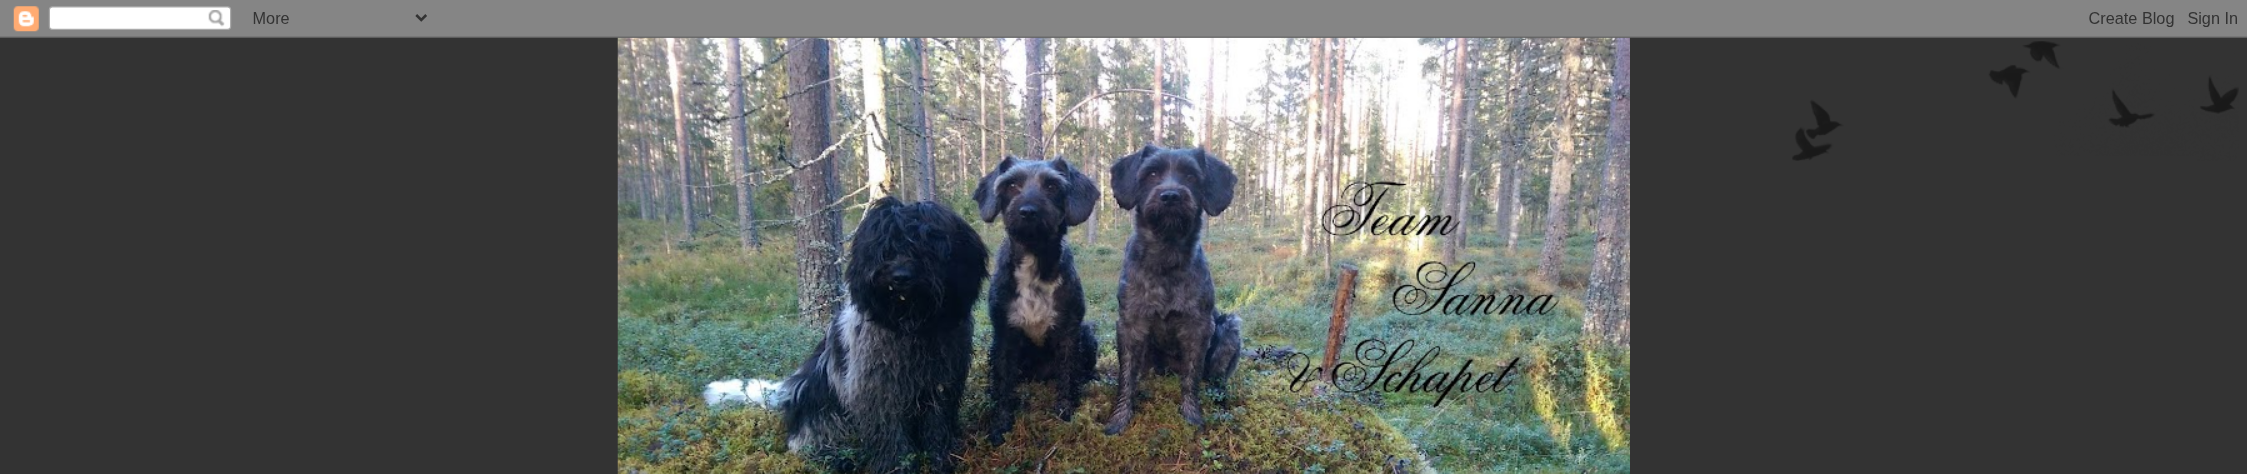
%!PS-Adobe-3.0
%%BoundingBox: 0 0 2247 474
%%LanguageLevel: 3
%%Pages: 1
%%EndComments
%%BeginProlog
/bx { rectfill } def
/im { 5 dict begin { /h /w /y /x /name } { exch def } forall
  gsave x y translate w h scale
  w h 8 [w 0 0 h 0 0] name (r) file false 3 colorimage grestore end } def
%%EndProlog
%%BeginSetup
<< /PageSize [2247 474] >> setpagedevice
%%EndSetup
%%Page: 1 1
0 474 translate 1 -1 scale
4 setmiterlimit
0.2 setgray
0 0 2247 474 bx
(image1.raw) 617 37 1013 437 im
(image0.raw) 0 0 2247 38 im
(image2.raw) 1792 41 447 120 im
showpage
%%EOF
